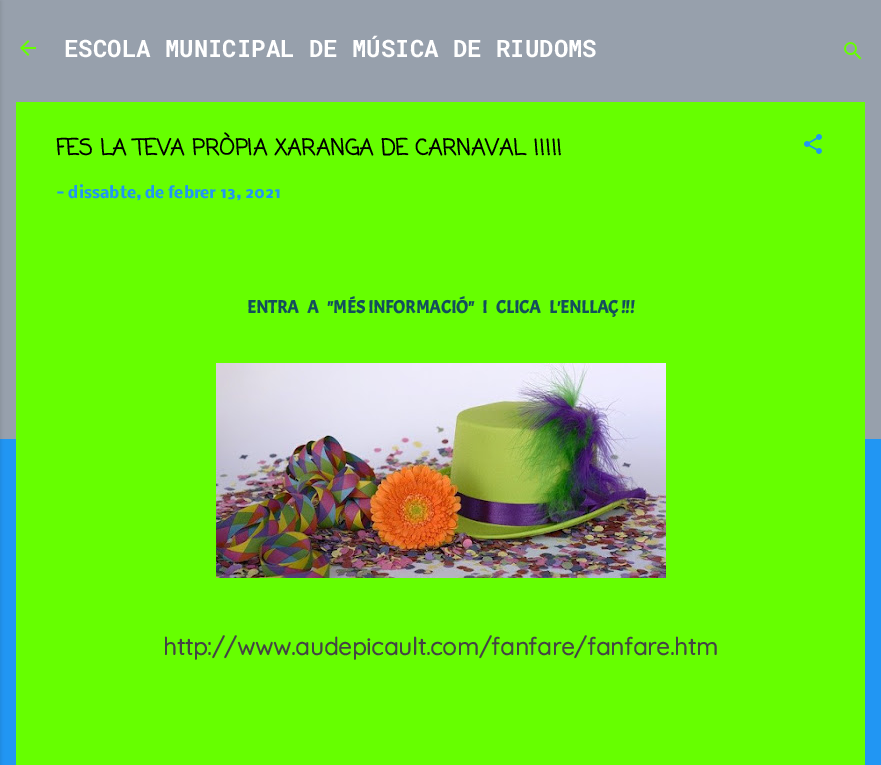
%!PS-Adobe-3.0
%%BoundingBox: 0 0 881 765
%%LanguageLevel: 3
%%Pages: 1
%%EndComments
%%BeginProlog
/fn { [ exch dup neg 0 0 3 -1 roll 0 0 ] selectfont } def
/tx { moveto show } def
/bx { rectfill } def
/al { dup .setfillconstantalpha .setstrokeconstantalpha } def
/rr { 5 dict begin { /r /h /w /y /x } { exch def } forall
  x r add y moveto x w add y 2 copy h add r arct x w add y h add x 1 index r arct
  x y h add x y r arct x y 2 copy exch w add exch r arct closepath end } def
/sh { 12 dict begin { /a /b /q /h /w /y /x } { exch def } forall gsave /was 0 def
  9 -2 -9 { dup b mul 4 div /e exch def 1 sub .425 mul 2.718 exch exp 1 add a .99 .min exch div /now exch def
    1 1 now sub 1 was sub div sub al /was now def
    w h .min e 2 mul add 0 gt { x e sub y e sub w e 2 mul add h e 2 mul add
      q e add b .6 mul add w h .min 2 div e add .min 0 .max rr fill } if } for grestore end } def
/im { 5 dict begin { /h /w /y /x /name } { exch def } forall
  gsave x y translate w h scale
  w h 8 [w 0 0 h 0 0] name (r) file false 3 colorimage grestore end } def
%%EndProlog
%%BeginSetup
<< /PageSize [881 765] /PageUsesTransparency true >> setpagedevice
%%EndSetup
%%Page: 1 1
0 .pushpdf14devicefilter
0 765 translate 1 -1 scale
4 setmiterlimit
0.129 0.588 0.953 setrgbcolor
0 0 881 765 bx
0.592 0.627 0.675 setrgbcolor
0 0 881 439 bx
0 setgray
-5 1 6 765 0 1.5 0.1 sh
(image0.raw) 20 40 16 16 im
/RobotoMono-Bold 24 fn
1 setgray
(ESCOLA MUNICIPAL DE MÚSICA DE RIUDOMS) 64 57 tx
(image1.raw) 844 42 18 18 im
0.4 1 0 setrgbcolor
16 102 849 663 bx
/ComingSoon-Bold 22 fn
0 setgray
(FES LA TEVA PRÒPIA XARANGA DE CARNAVAL !!!!!) 56 155 tx
(image2.raw) 804 134 18 20 im
/Nobile-Bold 15 fn
0.129 0.588 0.953 setrgbcolor
(- dissabte, de febrer 13, 2021) 56 198 tx
/Acme-Bold 18 fn
0.075 0.31 0.361 setrgbcolor
(ENTRA   A   "MÉS INFORMACIÓ"   I   CLICA   L'ENLLAÇ !!!) 247 313 tx
(image3.raw) 216 363 450 215 im
/Quicksand-Bold 24 fn
0.267 setgray
(http://www.audepicault.com/fanfare/fanfare.htm) 163 655 tx
.poppdf14devicefilter showpage
%%EOF
